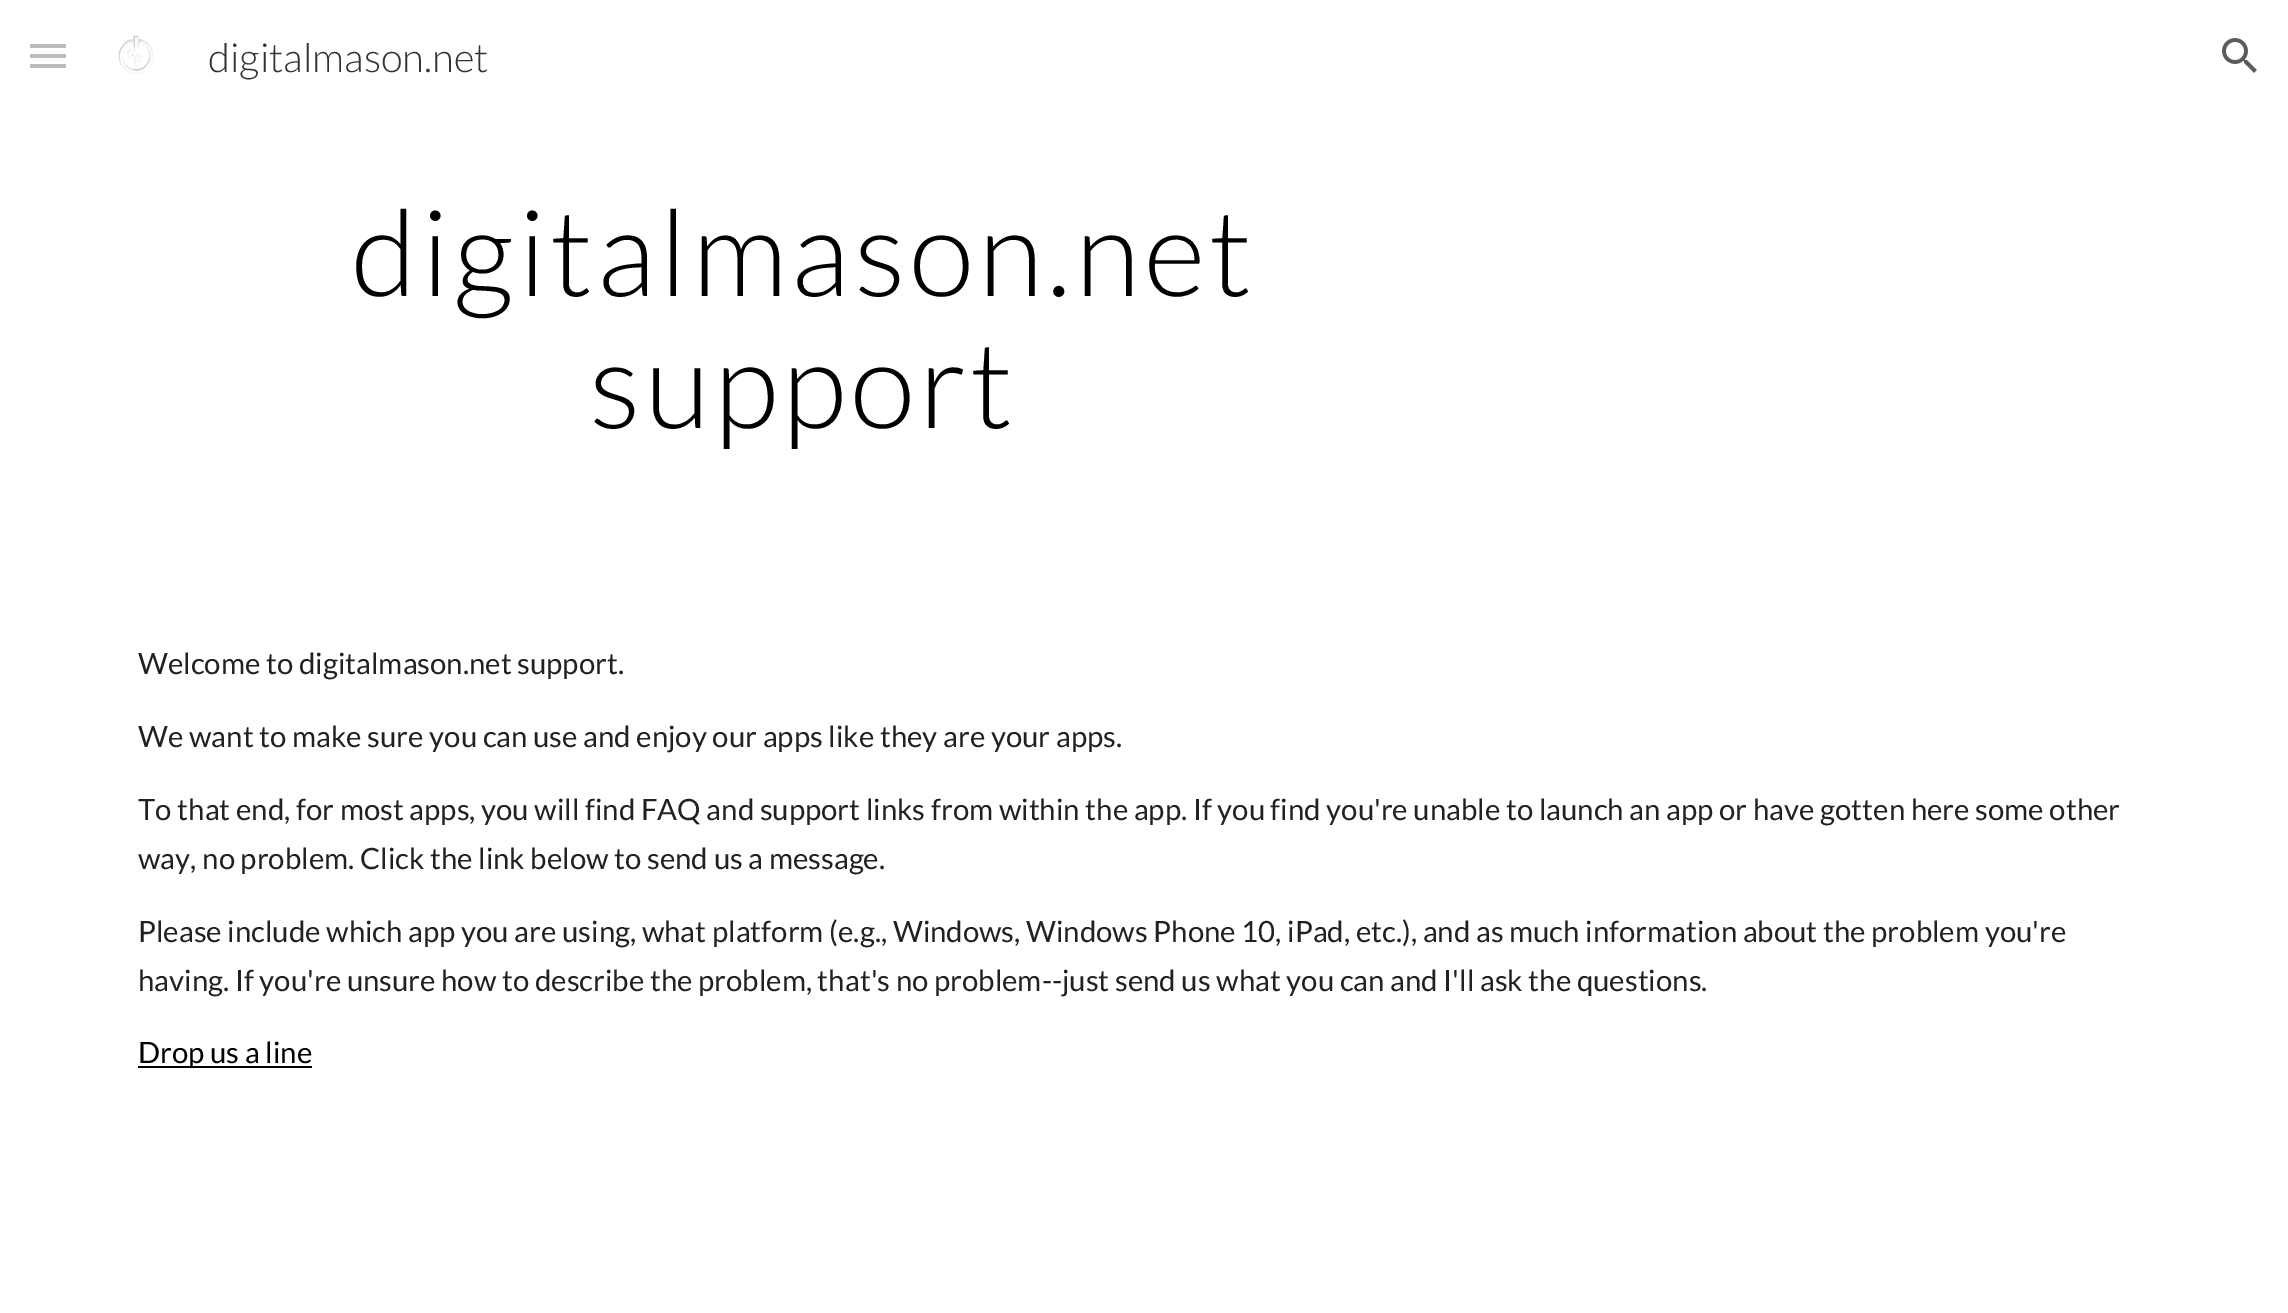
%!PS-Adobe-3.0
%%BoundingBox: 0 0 2288 1313
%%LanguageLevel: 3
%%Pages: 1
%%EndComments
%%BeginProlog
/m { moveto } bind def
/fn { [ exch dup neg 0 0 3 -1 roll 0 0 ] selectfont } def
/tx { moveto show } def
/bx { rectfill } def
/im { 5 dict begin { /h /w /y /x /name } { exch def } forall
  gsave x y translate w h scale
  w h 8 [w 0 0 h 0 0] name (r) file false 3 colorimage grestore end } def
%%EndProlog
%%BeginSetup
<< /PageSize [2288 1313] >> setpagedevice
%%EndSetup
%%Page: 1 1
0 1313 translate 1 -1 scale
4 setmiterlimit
1 setgray
0 0 2288 1313 bx
0.733 setgray
30 44 36 4 bx
30 54 36 4 bx
30 64 36 4 bx
(image0.raw) 118 35 36 39 im
/Lato-Light 40 fn
0.2 setgray
(digitalmason.net) 208 72 tx
(image1.raw) 2222 38 35 35 im
/Lato-Light 120 fn
0 setgray
351 296 m 4 0 (digitalmason.net) ashow
589 428 m 4 0 (support) ashow
/Lato-Regular 29.33 fn
0.129 setgray
(Welcome to digitalmason.net support.) 138 674 tx
(We want to make sure you can use and enjoy our apps like they are your apps.) 138 747 tx
(To that end, for most apps, you will find FAQ and support links from within the app. If you find you're unable to launch an app or have gotten here some other) 138 820 tx
(way, no problem. Click the link below to send us a message.) 138 869 tx
(Please include which app you are using, what platform \(e.g., Windows, Windows Phone 10, iPad, etc.\), and as much information about the problem you're) 138 942 tx
(having. If you're unsure how to describe the problem, that's no problem--just send us what you can and I'll ask the questions.) 138 991 tx
0 setgray
138 1066 174 2 bx
(Drop us a line) 138 1063 tx
showpage
%%EOF
